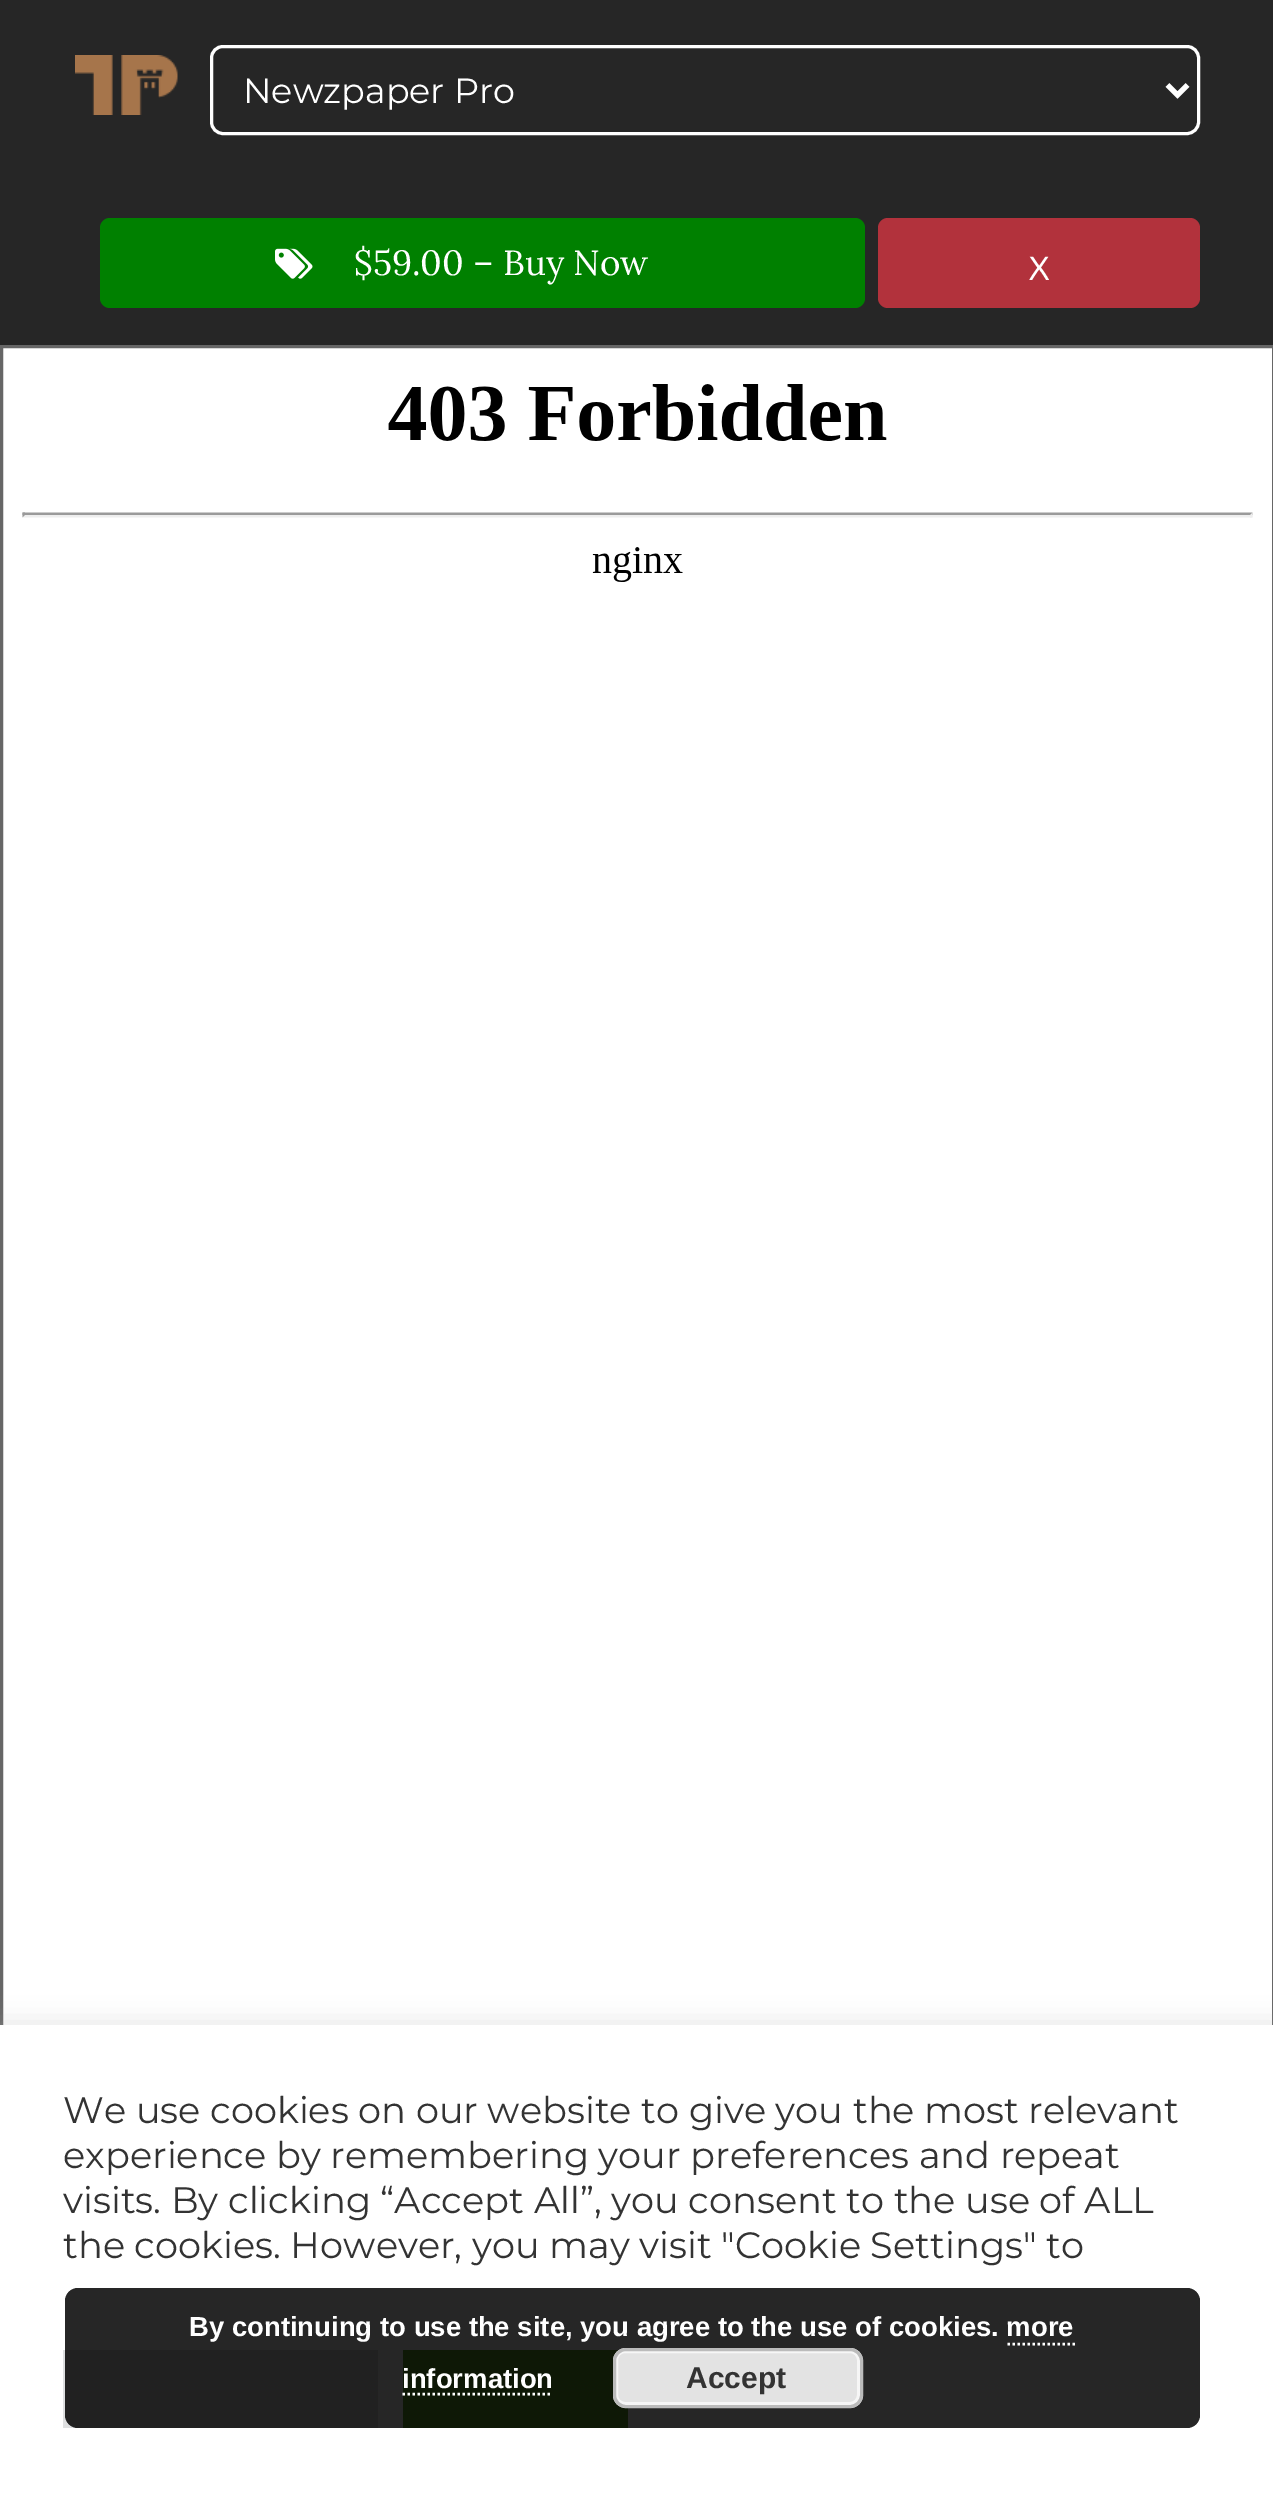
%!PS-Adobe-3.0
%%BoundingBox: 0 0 1273 2502
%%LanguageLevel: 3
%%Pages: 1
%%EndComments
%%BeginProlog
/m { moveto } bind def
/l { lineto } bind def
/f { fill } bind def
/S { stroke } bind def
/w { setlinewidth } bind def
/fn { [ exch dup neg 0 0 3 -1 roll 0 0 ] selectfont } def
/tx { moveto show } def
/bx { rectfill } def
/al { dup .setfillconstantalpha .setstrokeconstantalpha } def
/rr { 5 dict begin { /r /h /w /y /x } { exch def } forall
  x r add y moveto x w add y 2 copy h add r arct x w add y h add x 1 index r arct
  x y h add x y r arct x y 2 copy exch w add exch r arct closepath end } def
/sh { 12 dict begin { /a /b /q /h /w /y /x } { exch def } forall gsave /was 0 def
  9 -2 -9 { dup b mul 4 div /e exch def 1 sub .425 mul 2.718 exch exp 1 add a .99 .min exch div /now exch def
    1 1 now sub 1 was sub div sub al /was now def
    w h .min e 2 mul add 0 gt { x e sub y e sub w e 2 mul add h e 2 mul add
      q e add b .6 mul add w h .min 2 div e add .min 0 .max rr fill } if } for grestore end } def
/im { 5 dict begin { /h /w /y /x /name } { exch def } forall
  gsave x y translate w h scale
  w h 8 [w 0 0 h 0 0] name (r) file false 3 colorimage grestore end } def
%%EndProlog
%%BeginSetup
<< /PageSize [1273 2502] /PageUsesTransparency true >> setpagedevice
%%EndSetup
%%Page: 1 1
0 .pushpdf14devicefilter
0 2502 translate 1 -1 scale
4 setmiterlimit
1 setgray
0 0 1273 2502 bx
0.149 setgray
0 0 1273 345 bx
(image0.raw) 75 55 103 60 im
1 setgray
3 w
211.5 46.5 987 87 11.5 rr S
5 w
1167.5 85 m 1177.5 95 l 1187.5 85 l S
/Montserrat-Regular 35 fn
(Newzpaper Pro) 243 103 tx
0 0.502 0 setrgbcolor
100 218 765 90 10 rr f
(image1.raw) 275 248 38 31 im
/Lora-Regular 35 fn
1 setgray
($59.00 – Buy Now) 354 275 tx
0.698 0.196 0.235 setrgbcolor
878 218 322 90 10 rr f
/Ubuntu-Light 45 fn
1 setgray
(x) 1028 280 tx
0.4 setgray
3 w
1.5 346.5 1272 2125 rectstroke
(image2.raw) 22 384 1231 198 im
0.675 0.671 0.671 setrgbcolor
0 2023 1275 477 0 12.5 0.3 sh
1 setgray
0 2025 1273 477 bx
/Montserrat-Regular 36.7 fn
0.2 setgray
(We use cookies on our website to give you the most relevant) 63 2123 tx
(experience by remembering your preferences and repeat) 63 2168 tx
(visits. By clicking “Accept All”, you consent to the use of ALL) 63 2213 tx
(the cookies. However, you may visit "Cookie Settings" to) 63 2258 tx
0.871 0.875 0.878 setrgbcolor
63 2350 315 78 bx
0.38 0.635 0.161 setrgbcolor
403 2350 225 78 bx
0.85 al
0 setgray
65 2288 1135 140 13 rr f
/LiberationSans-Bold 27.5 fn
1 al
1 setgray
(By continuing to use the site, you agree to the use of cookies. more) 189 2336 tx
(information) 402 2388 tx
2.5 w
[2.5 2.5] 0 setdash
1007.5 2344 m 1075 2344 l S
402.5 2394 m 552.5 2394 l S
0.89 setgray
613 2348 250 60 13 rr f
0.965 setgray
3 w
[] 0 setdash
616.5 2351.5 242 52 8.5 rr S
0.733 setgray
614.5 2349.5 247 57 11.5 rr S
/LiberationSans-Bold 30 fn
0.2 setgray
(Accept) 686 2388 tx
.poppdf14devicefilter showpage
%%EOF
